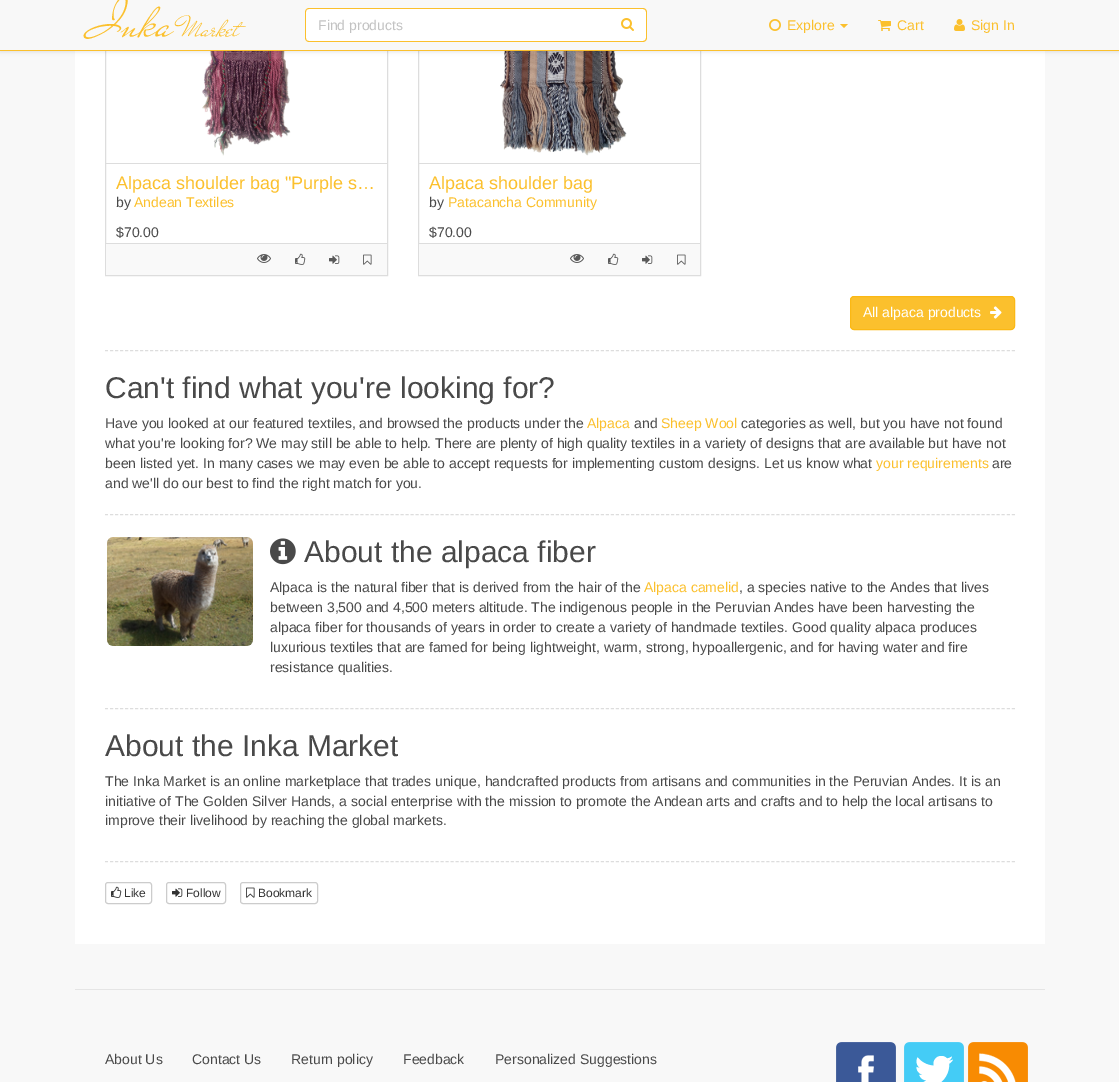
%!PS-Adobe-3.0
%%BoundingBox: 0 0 1119 1082
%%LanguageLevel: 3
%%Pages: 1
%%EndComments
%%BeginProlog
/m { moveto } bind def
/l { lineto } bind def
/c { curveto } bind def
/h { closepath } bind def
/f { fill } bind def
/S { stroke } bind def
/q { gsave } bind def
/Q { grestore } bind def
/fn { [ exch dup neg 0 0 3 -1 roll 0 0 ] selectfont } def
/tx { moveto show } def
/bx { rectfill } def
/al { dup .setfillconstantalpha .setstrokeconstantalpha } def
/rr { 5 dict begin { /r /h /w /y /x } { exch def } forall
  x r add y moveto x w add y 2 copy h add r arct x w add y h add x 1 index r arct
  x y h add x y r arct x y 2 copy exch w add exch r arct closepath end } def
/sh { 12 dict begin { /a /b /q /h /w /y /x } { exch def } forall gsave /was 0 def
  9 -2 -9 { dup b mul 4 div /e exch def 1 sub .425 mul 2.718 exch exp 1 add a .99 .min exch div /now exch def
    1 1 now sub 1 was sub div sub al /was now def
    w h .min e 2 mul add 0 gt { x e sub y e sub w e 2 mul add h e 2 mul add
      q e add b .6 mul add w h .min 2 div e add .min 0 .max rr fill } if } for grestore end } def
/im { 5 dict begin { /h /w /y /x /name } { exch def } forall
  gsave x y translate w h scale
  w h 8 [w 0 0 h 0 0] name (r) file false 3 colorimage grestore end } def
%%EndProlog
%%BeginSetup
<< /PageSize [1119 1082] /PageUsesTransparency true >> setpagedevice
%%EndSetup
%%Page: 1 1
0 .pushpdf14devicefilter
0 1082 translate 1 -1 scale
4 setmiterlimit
0.973 setgray
0 0 1119 1082 bx
1 setgray
75 51 970 893 bx
0.867 setgray
105.5 -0.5 282 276 rectstroke
(image4.raw) 202 51 89 105 im
418.5 -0.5 282 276 rectstroke
(image9.raw) 500 51 127 105 im
0 setgray
0 1 1119 51 0 2 0.1 sh
0.973 setgray
0 0 1119 50 bx
0.984 0.753 0.176 setrgbcolor
0 50 1119 1 bx
/MrDeHaviland-Regular 54 fn
(Inka) 90 36 tx
/MrDeHaviland-Regular 30 fn
(Market) 182 36 tx
1 setgray
309 8 m 610 8 l 610 42 l 309 42 l 307 42 305 40 305 38 c 305 12 l 305 10 307 8 309 8 c h f
0.984 0.753 0.176 setrgbcolor
309 8 m 610 8 l 610 42 l 309 42 l 307 42 305 40 305 38 c 305 12 l 305 10 307 8 309 8 c h 309 9 m 610 9 l 610 41 l 309 41 l 307 41 306 40 306 38 c 306 12 l 306 10 307 9 309 9 c h eofill
/LiberationSans-Regular 14 fn
0.761 setgray
(Find products) 318 30 tx
1 setgray
609 8 m 643 8 l 645 8 647 10 647 12 c 647 38 l 647 40 645 42 643 42 c 609 42 l h f
0.984 0.753 0.176 setrgbcolor
609 8 m 643 8 l 645 8 647 10 647 12 c 647 38 l 647 40 645 42 643 42 c 609 42 l h 609 9 m 643 9 l 644.5 9 646 10.5 646 12 c 646 38 l 646 39.5 644.5 41 643 41 c 609 41 l h eofill
(image0.raw) 621 18 13 13 im
(image1.raw) 769 19 12 12 im
(Explore) 787 30 tx
840 24 m 848 24 l 844 28 l h f
(image2.raw) 878 20 13 11 im
(Cart) 897 30 tx
(image3.raw) 954 19 11 12 im
(Sign In) 971 30 tx
0.867 setgray
106 163 281 1 bx
/LiberationSans-Regular 18 fn
0.984 0.753 0.176 setrgbcolor
(Alpaca shoulder bag "Purple s…) 116 189 tx
/LiberationSans-Regular 14 fn
0.286 setgray
(by) 116 207 tx
0.984 0.753 0.176 setrgbcolor
(Andean Textiles) 134 207 tx
0.286 setgray
($70.00) 116 237 tx
0.976 setgray
106 244 281 31 bx
0.867 setgray
106 243 281 1 bx
(image5.raw) 257 254 14 9 im
(image6.raw) 295 253 11 12 im
(image7.raw) 329 255 11 9 im
(image8.raw) 363 254 9 11 im
419 163 281 1 bx
/LiberationSans-Regular 18 fn
0.984 0.753 0.176 setrgbcolor
(Alpaca shoulder bag) 429 189 tx
/LiberationSans-Regular 14 fn
0.286 setgray
(by) 429 207 tx
0.984 0.753 0.176 setrgbcolor
(Patacancha Community) 448 207 tx
0.286 setgray
($70.00) 429 237 tx
0.976 setgray
419 244 281 31 bx
0.867 setgray
419 243 281 1 bx
(image5.raw) 570 254 14 9 im
(image6.raw) 608 253 11 12 im
(image7.raw) 642 255 11 9 im
(image8.raw) 677 254 9 11 im
0.984 0.753 0.176 setrgbcolor
850.5 296.5 164 33 3.5 rr q f Q
0.984 0.722 0.078 setrgbcolor
S
1 setgray
(All alpaca products) 863 317 tx
(image10.raw) 990 306 12 13 im
0.867 setgray
[3 2.01] 0 setdash
105 350.5 m 1015 350.5 l S
/LiberationSans-Regular 30 fn
0.286 setgray
(Can't find what you're looking for?) 105 398 tx
/LiberationSans-Regular 14 fn
(Have you looked at our featured textiles, and browsed the products under the) 105 428 tx
0.984 0.753 0.176 setrgbcolor
(Alpaca) 587 428 tx
0.286 setgray
(and) 634 428 tx
0.984 0.753 0.176 setrgbcolor
(Sheep Wool) 661 428 tx
0.286 setgray
(categories as well, but you have not found) 741 428 tx
(what you're looking for? We may still be able to help. There are plenty of high quality textiles in a variety of designs that are available but have not) 105 448 tx
(been listed yet. In many cases we may even be able to accept requests for implementing custom designs. Let us know what) 105 468 tx
0.984 0.753 0.176 setrgbcolor
(your requirements) 876 468 tx
0.286 setgray
(are) 992 468 tx
(and we'll do our best to find the right match for you.) 105 488 tx
0.867 setgray
105 514.5 m 1015 514.5 l S
(image11.raw) 107 537 146 109 im
(image12.raw) 270 538 26 27 im
/LiberationSans-Regular 30 fn
0.286 setgray
(About the alpaca fiber) 304 562 tx
/LiberationSans-Regular 14 fn
(Alpaca is the natural fiber that is derived from the hair of the) 270 592 tx
0.984 0.753 0.176 setrgbcolor
(Alpaca camelid) 644 592 tx
0.286 setgray
(, a species native to the Andes that lives) 739 592 tx
(between 3,500 and 4,500 meters altitude. The indigenous people in the Peruvian Andes have been harvesting the) 270 612 tx
(alpaca fiber for thousands of years in order to create a variety of handmade textiles. Good quality alpaca produces) 270 632 tx
(luxurious textiles that are famed for being lightweight, warm, strong, hypoallergenic, and for having water and fire) 270 652 tx
(resistance qualities.) 270 672 tx
0.867 setgray
105 708.5 m 1015 708.5 l S
/LiberationSans-Regular 30 fn
0.286 setgray
(About the Inka Market) 105 756 tx
/LiberationSans-Regular 14 fn
(The Inka Market is an online marketplace that trades unique, handcrafted products from artisans and communities in the Peruvian Andes. It is an) 105 786 tx
(initiative of The Golden Silver Hands, a social enterprise with the mission to promote the Andean arts and crafts and to help the local artisans to) 105 806 tx
(improve their livelihood by reaching the global markets.) 105 825 tx
0.867 setgray
105 861.5 m 1015 861.5 l S
0.8 setgray
[] 0 setdash
105.5 882.5 46 21 2.5 rr S
(image13.raw) 111 886 11 12 im
/LiberationSans-Regular 12 fn
0.2 setgray
(Like) 124 897 tx
0.8 setgray
166.5 882.5 59 21 2.5 rr S
(image14.raw) 172 888 11 9 im
0.2 setgray
(Follow) 186 897 tx
0.8 setgray
240.5 882.5 77 21 2.5 rr S
(image15.raw) 246 887 9 11 im
0.2 setgray
(Bookmark) 258 897 tx
0.898 setgray
75 989 970 1 bx
/LiberationSans-Regular 14 fn
0.286 setgray
(About Us) 105 1064 tx
(Contact Us) 192 1064 tx
(Return policy) 291 1064 tx
(Feedback) 403 1064 tx
(Personalized Suggestions) 495 1064 tx
(image16.raw) 836 1042 60 40 im
(image17.raw) 904 1042 60 40 im
(image18.raw) 968 1042 60 40 im
.poppdf14devicefilter showpage
%%EOF
